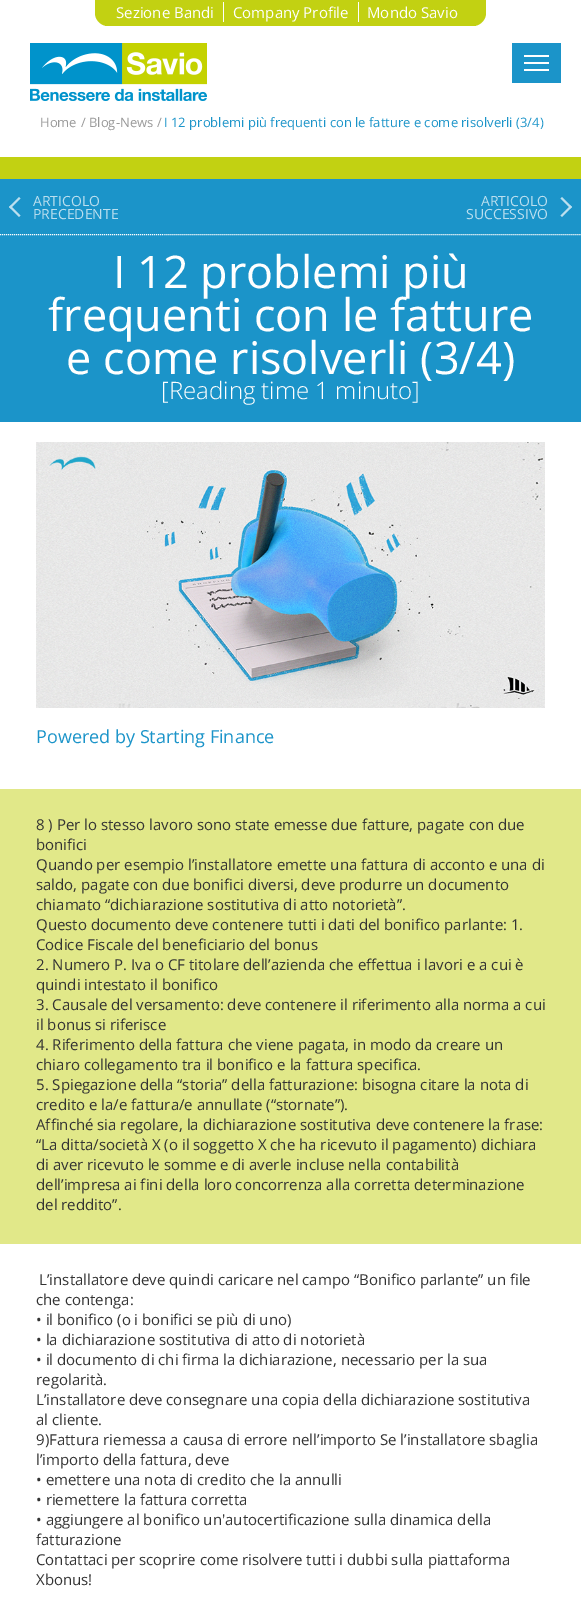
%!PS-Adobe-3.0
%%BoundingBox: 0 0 581 1620
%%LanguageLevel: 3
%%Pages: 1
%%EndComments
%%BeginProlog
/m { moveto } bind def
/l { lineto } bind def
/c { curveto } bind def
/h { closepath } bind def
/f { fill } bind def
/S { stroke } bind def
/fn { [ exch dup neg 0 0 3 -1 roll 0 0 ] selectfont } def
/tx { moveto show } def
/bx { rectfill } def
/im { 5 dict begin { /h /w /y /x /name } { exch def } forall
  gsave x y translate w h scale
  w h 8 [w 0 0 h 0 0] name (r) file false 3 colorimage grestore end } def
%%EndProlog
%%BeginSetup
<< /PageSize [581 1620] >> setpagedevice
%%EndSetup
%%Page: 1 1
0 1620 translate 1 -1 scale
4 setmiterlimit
1 setgray
0 0 581 1620 bx
0.761 0.82 0.071 setrgbcolor
105 0 371 26 bx
95 0 m 121 0 l 121 26 l 108 26 l 101 26 95 20 95 13 c h f
1 setgray
223 2 1 20 bx
/OpenSans-Regular 15 fn
(Sezione Bandi) 116 18 tx
(Company Profile) 233 18 tx
358 2 1 20 bx
(Mondo Savio) 367 18 tx
0.761 0.82 0.071 setrgbcolor
460 0 m 486 0 l 486 13 l 486 20 480 26 473 26 c 460 26 l h f
0 157 581 22 bx
(image0.raw) 30 43 177 58 im
0.106 0.58 0.788 setrgbcolor
512 43 49 40 bx
1 setgray
524 55 25 2 bx
524 62 25 2 bx
524 69 25 2 bx
/OpenSans-Regular 13 fn
0.6 setgray
(Home) 40 127 tx
(/) 81 127 tx
(Blog-News) 89 127 tx
(/) 157 127 tx
0.106 0.58 0.788 setrgbcolor
(I 12 problemi più frequenti con le fatture e come risolverli \(3/4\)) 164 127 tx
0 179 581 243 bx
0.733 0.875 0.937 setrgbcolor
20.5 215.5 m 19 217 l 9 207 l 10.5 205.5 l h f
20.5 198.5 m 10.5 208.5 l 9 207 l 19 197 l h f
/OpenSans-Regular 14 fn
(ARTICOLO) 33 206 tx
(PRECEDENTE) 33 219 tx
(ARTICOLO) 481 206 tx
560.5 198.5 m 562 197 l 572 207 l 570.5 208.5 l h f
560.5 215.5 m 570.5 205.5 l 572 207 l 562 217 l h f
(SUCCESSIVO) 466 219 tx
1 setgray
[1 1] 0 setdash
-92 234.5 m 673 234.5 l S
/OpenSans-Regular 45 fn
(I 12 problemi più) 113 288 tx
(frequenti con le fatture) 48 331 tx
(e come risolverli \(3/4\)) 66 374 tx
/OpenSans-Light 24 fn
([Reading time 1 minuto]) 161 399 tx
(image1.raw) 36 442 509 266 im
/OpenSans-Regular 18 fn
0.106 0.58 0.788 setrgbcolor
(Powered by Starting Finance) 36 743 tx
0.882 0.91 0.537 setrgbcolor
0 789 581 455 bx
/OpenSans-Regular 15 fn
0.2 setgray
(8 \) Per lo stesso lavoro sono state emesse due fatture, pagate con due) 36 830 tx
(bonifici) 36 850 tx
(Quando per esempio l’installatore emette una fattura di acconto e una di) 36 870 tx
(saldo, pagate con due bonifici diversi, deve produrre un documento) 36 890 tx
(chiamato “dichiarazione sostitutiva di atto notorietà”.) 36 910 tx
(Questo documento deve contenere tutti i dati del bonifico parlante: 1.) 36 930 tx
(Codice Fiscale del beneficiario del bonus) 36 950 tx
(2. Numero P. Iva o CF titolare dell’azienda che effettua i lavori e a cui è) 36 970 tx
(quindi intestato il bonifico) 36 990 tx
(3. Causale del versamento: deve contenere il riferimento alla norma a cui) 36 1010 tx
(il bonus si riferisce) 36 1030 tx
(4. Riferimento della fattura che viene pagata, in modo da creare un) 36 1050 tx
(chiaro collegamento tra il bonifico e la fattura specifica.) 36 1070 tx
(5. Spiegazione della “storia” della fatturazione: bisogna citare la nota di) 36 1090 tx
(credito e la/e fattura/e annullate \(“stornate”\).) 36 1110 tx
(Affinché sia regolare, la dichiarazione sostitutiva deve contenere la frase:) 36 1130 tx
(“La ditta/società X \(o il soggetto X che ha ricevuto il pagamento\) dichiara) 36 1150 tx
(di aver ricevuto le somme e di averle incluse nella contabilità) 36 1170 tx
(dell’impresa ai fini della loro concorrenza alla corretta determinazione) 36 1190 tx
(del reddito”.) 36 1210 tx
(L’installatore deve quindi caricare nel campo “Bonifico parlante” un file) 39 1285 tx
(che contenga:) 36 1305 tx
(• il bonifico \(o i bonifici se più di uno\)) 36 1325 tx
(• la dichiarazione sostitutiva di atto di notorietà) 36 1345 tx
(• il documento di chi firma la dichiarazione, necessario per la sua) 36 1365 tx
(regolarità.) 36 1385 tx
(L’installatore deve consegnare una copia della dichiarazione sostitutiva) 36 1405 tx
(al cliente.) 36 1425 tx
(9\)Fattura riemessa a causa di errore nell’importo Se l’installatore sbaglia) 36 1445 tx
(l’importo della fattura, deve) 36 1465 tx
(• emettere una nota di credito che la annulli) 36 1485 tx
(• riemettere la fattura corretta) 36 1505 tx
(• aggiungere al bonifico un'autocertificazione sulla dinamica della) 36 1525 tx
(fatturazione) 36 1545 tx
(Contattaci per scoprire come risolvere tutti i dubbi sulla piattaforma) 36 1565 tx
(Xbonus!) 36 1585 tx
showpage
%%EOF
